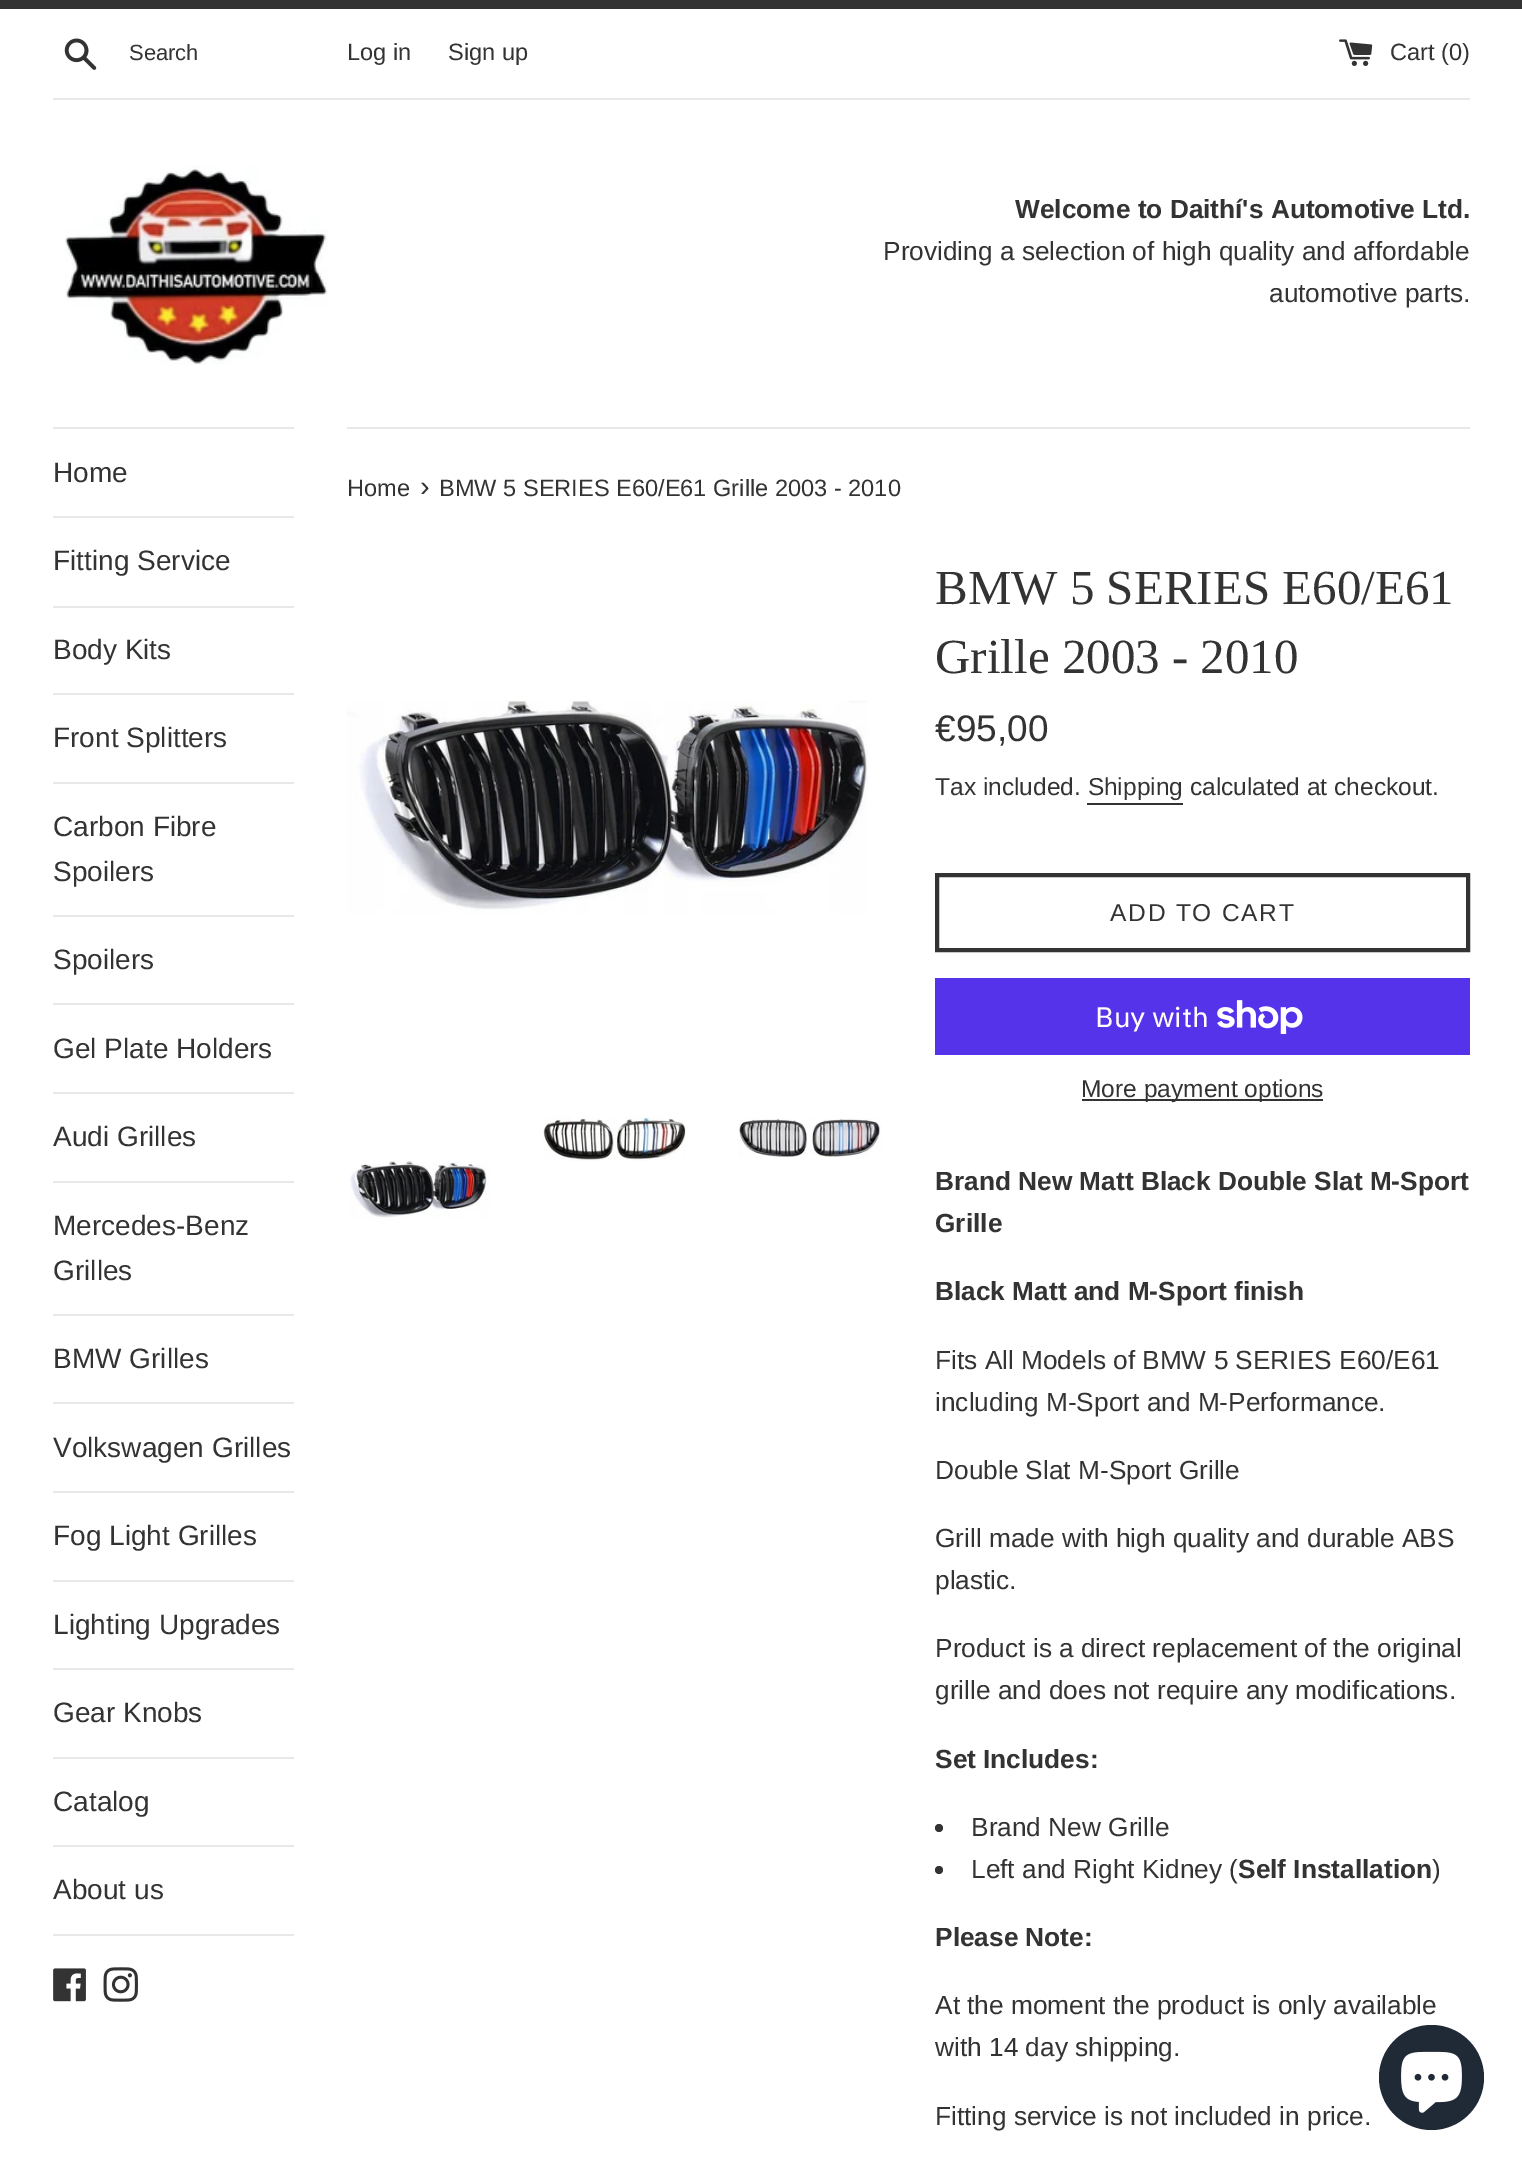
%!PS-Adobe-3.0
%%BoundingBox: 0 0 1522 2166
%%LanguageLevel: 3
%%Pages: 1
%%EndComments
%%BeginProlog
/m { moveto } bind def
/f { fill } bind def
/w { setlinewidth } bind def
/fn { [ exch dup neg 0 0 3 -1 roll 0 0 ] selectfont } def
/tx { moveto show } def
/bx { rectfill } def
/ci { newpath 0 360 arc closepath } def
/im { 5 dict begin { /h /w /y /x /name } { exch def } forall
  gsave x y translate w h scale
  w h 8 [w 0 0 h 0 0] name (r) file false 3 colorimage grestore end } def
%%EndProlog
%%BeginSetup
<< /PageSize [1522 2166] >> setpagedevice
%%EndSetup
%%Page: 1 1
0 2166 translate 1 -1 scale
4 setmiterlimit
1 setgray
0 0 1522 2166 bx
0.2 setgray
0 0 1522 9 bx
(image0.raw) 64 38 33 32 im
/LiberationSans-Regular 22 fn
(Search) 129 60 tx
/LiberationSans-Regular 23.6 fn
(Log in) 347 60 tx
(Sign up) 448 60 tx
(image1.raw) 1339 39 34 27 im
(Cart \(0\)) 1390 60 tx
0.91 setgray
53 98 1417 2 bx
(image2.raw) 65 166 263 199 im
/LiberationSans-Bold 26.25 fn
0.2 setgray
(Welcome to Daithí's Automotive Ltd.) 1015 218 tx
/LiberationSans-Regular 26.25 fn
(Providing a selection of high quality and affordable) 883 260 tx
(automotive parts.) 1269 302 tx
0.91 setgray
53 427 241 2 bx
53 516 241 2 bx
/LiberationSans-Regular 28 fn
0.2 setgray
(Home) 53 482 tx
0.91 setgray
53 606 241 2 bx
0.2 setgray
(Fitting Service) 53 570 tx
0.91 setgray
53 693 241 2 bx
0.2 setgray
(Body Kits) 53 659 tx
0.91 setgray
53 782 241 2 bx
0.2 setgray
(Front Splitters) 53 747 tx
0.91 setgray
53 915 241 2 bx
0.2 setgray
(Carbon Fibre) 53 836 tx
(Spoilers) 53 881 tx
0.91 setgray
53 1003 241 2 bx
0.2 setgray
(Spoilers) 53 969 tx
0.91 setgray
53 1092 241 2 bx
0.2 setgray
(Gel Plate Holders) 53 1058 tx
0.91 setgray
53 1181 241 2 bx
0.2 setgray
(Audi Grilles) 53 1146 tx
0.91 setgray
53 1314 241 2 bx
0.2 setgray
(Mercedes-Benz) 53 1235 tx
(Grilles) 53 1280 tx
0.91 setgray
53 1402 241 2 bx
0.2 setgray
(BMW Grilles) 53 1368 tx
0.91 setgray
53 1491 241 2 bx
0.2 setgray
(Volkswagen Grilles) 53 1457 tx
0.91 setgray
53 1580 241 2 bx
0.2 setgray
(Fog Light Grilles) 53 1545 tx
0.91 setgray
53 1668 241 2 bx
0.2 setgray
(Lighting Upgrades) 53 1634 tx
0.91 setgray
53 1757 241 2 bx
0.2 setgray
(Gear Knobs) 53 1722 tx
0.91 setgray
53 1845 241 2 bx
0.2 setgray
(Catalog) 53 1811 tx
0.91 setgray
53 1934 241 2 bx
0.2 setgray
(About us) 53 1899 tx
(image3.raw) 53 1968 33 34 im
(image4.raw) 103 1967 35 35 im
0.91 setgray
347 427 1123 2 bx
/LiberationSans-Regular 23.6 fn
0.2 setgray
(Home) 347 496 tx
/LiberationSans-Regular 29 fn
(›) 420 496 tx
/LiberationSans-Regular 23.6 fn
(BMW 5 SERIES E60/E61 Grille 2003 - 2010) 439 496 tx
(image5.raw) 347 700 521 215 im
(image6.raw) 543 1116 143 45 im
(image7.raw) 739 1118 143 40 im
(image8.raw) 350 1161 140 58 im
/LiberationSerif-Regular 49 fn
(BMW 5 SERIES E60/E61) 935 604 tx
(Grille 2003 - 2010) 935 673 tx
/LiberationSans-Regular 37 fn
(€95,00) 935 741 tx
/LiberationSans-Regular 24.5 fn
(Tax included. Shipping calculated at checkout.) 935 795 tx
1087 803 96 2 bx
4 w
937 875 531 75 rectstroke
1110 921 m 1.75 0 (ADD TO CART) ashow
0.329 0.2 0.922 setrgbcolor
935 978 535 77 bx
/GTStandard-Regular 28 fn
1 setgray
(Buy with) 1095 1027 tx
(image9.raw) 1217 1000 86 34 im
0.2 setgray
1082 1099 241 2 bx
/LiberationSans-Regular 24.5 fn
(More payment options) 1081 1097 tx
/LiberationSans-Bold 26.25 fn
(Brand New Matt Black Double Slat M-Sport) 935 1190 tx
(Grille) 935 1232 tx
(Black Matt and M-Sport finish) 935 1300 tx
/LiberationSans-Regular 26.25 fn
(Fits All Models of BMW 5 SERIES E60/E61) 935 1369 tx
(including M-Sport and M-Performance.) 935 1411 tx
(Double Slat M-Sport Grille) 935 1479 tx
(Grill made with high quality and durable ABS) 935 1547 tx
(plastic.) 935 1589 tx
(Product is a direct replacement of the original) 935 1657 tx
(grille and does not require any modifications.) 935 1699 tx
/LiberationSans-Bold 26.25 fn
(Set Includes:) 935 1768 tx
939 1828 4 ci f
/LiberationSans-Regular 26.25 fn
(Brand New Grille) 971 1836 tx
939 1870 4 ci f
(Left and Right Kidney \() 971 1878 tx
/LiberationSans-Bold 26.25 fn
(Self Installation) 1238 1878 tx
/LiberationSans-Regular 26.25 fn
(\)) 1432 1878 tx
/LiberationSans-Bold 26.25 fn
(Please Note:) 935 1946 tx
/LiberationSans-Regular 26.25 fn
(At the moment the product is only available) 935 2014 tx
(with 14 day shipping.) 935 2056 tx
(Fitting service is not included in price.) 935 2125 tx
0.125 0.165 0.212 setrgbcolor
1431.5 2077.5 52.5 ci f
(image10.raw) 1401 2051 61 62 im
showpage
%%EOF
